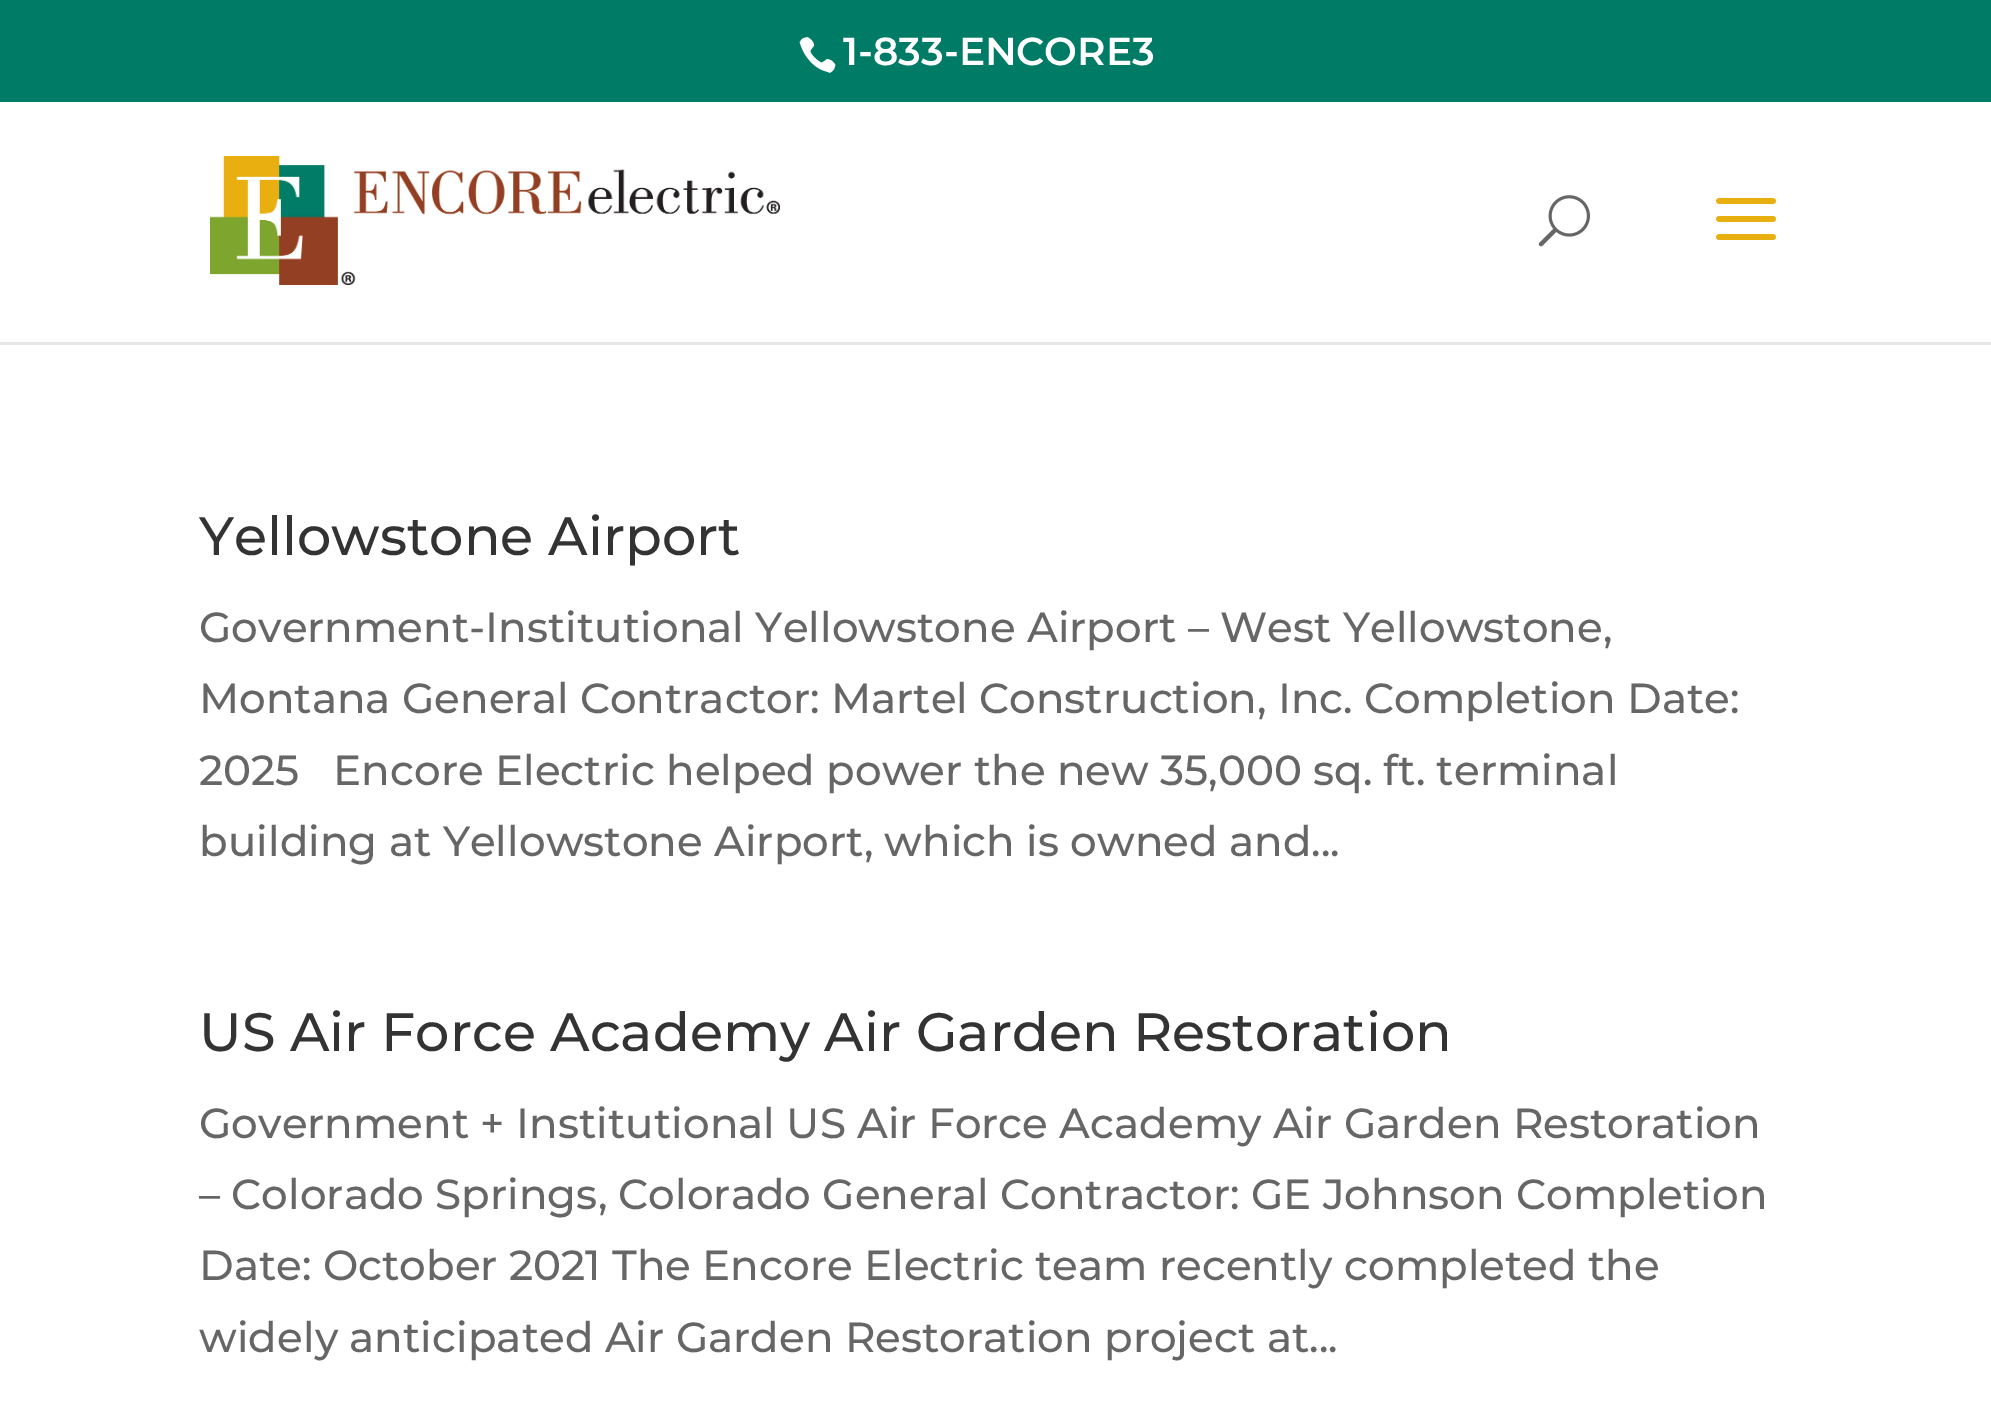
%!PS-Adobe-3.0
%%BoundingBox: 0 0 1991 1425
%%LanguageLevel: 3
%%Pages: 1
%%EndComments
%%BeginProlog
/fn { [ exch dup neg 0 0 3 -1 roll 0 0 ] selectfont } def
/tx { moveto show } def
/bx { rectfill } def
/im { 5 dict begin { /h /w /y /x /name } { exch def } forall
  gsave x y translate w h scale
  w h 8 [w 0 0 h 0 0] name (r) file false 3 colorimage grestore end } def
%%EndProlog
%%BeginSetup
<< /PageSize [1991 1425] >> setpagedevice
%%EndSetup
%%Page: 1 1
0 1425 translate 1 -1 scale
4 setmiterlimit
1 setgray
0 0 1991 1425 bx
0 0.486 0.4 setrgbcolor
0 0 1991 102 bx
(image0.raw) 799 37 37 36 im
/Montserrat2-Thin 39 fn
1 setgray
(1-833-ENCORE3) 843 65 tx
0.902 setgray
0 342 1991 3 bx
(image1.raw) 210 156 570 129 im
(image2.raw) 1538 195 52 52 im
(image3.raw) 1716 198 60 42 im
/Montserrat-Thin 54 fn
0.2 setgray
(Yellowstone Airport) 199 555 tx
/Montserrat-Thin 42 fn
0.4 setgray
(Government-Institutional Yellowstone Airport – West Yellowstone,) 199 642 tx
(Montana General Contractor: Martel Construction, Inc. Completion Date:) 199 713 tx
(2025   Encore Electric helped power the new 35,000 sq. ft. terminal) 199 785 tx
(building at Yellowstone Airport, which is owned and...) 199 856 tx
/Montserrat-Thin 54 fn
0.2 setgray
(US Air Force Academy Air Garden Restoration) 199 1051 tx
/Montserrat-Thin 42 fn
0.4 setgray
(Government + Institutional US Air Force Academy Air Garden Restoration) 199 1138 tx
(– Colorado Springs, Colorado General Contractor: GE Johnson Completion) 199 1209 tx
(Date: October 2021 The Encore Electric team recently completed the) 199 1280 tx
(widely anticipated Air Garden Restoration project at...) 199 1352 tx
showpage
%%EOF
